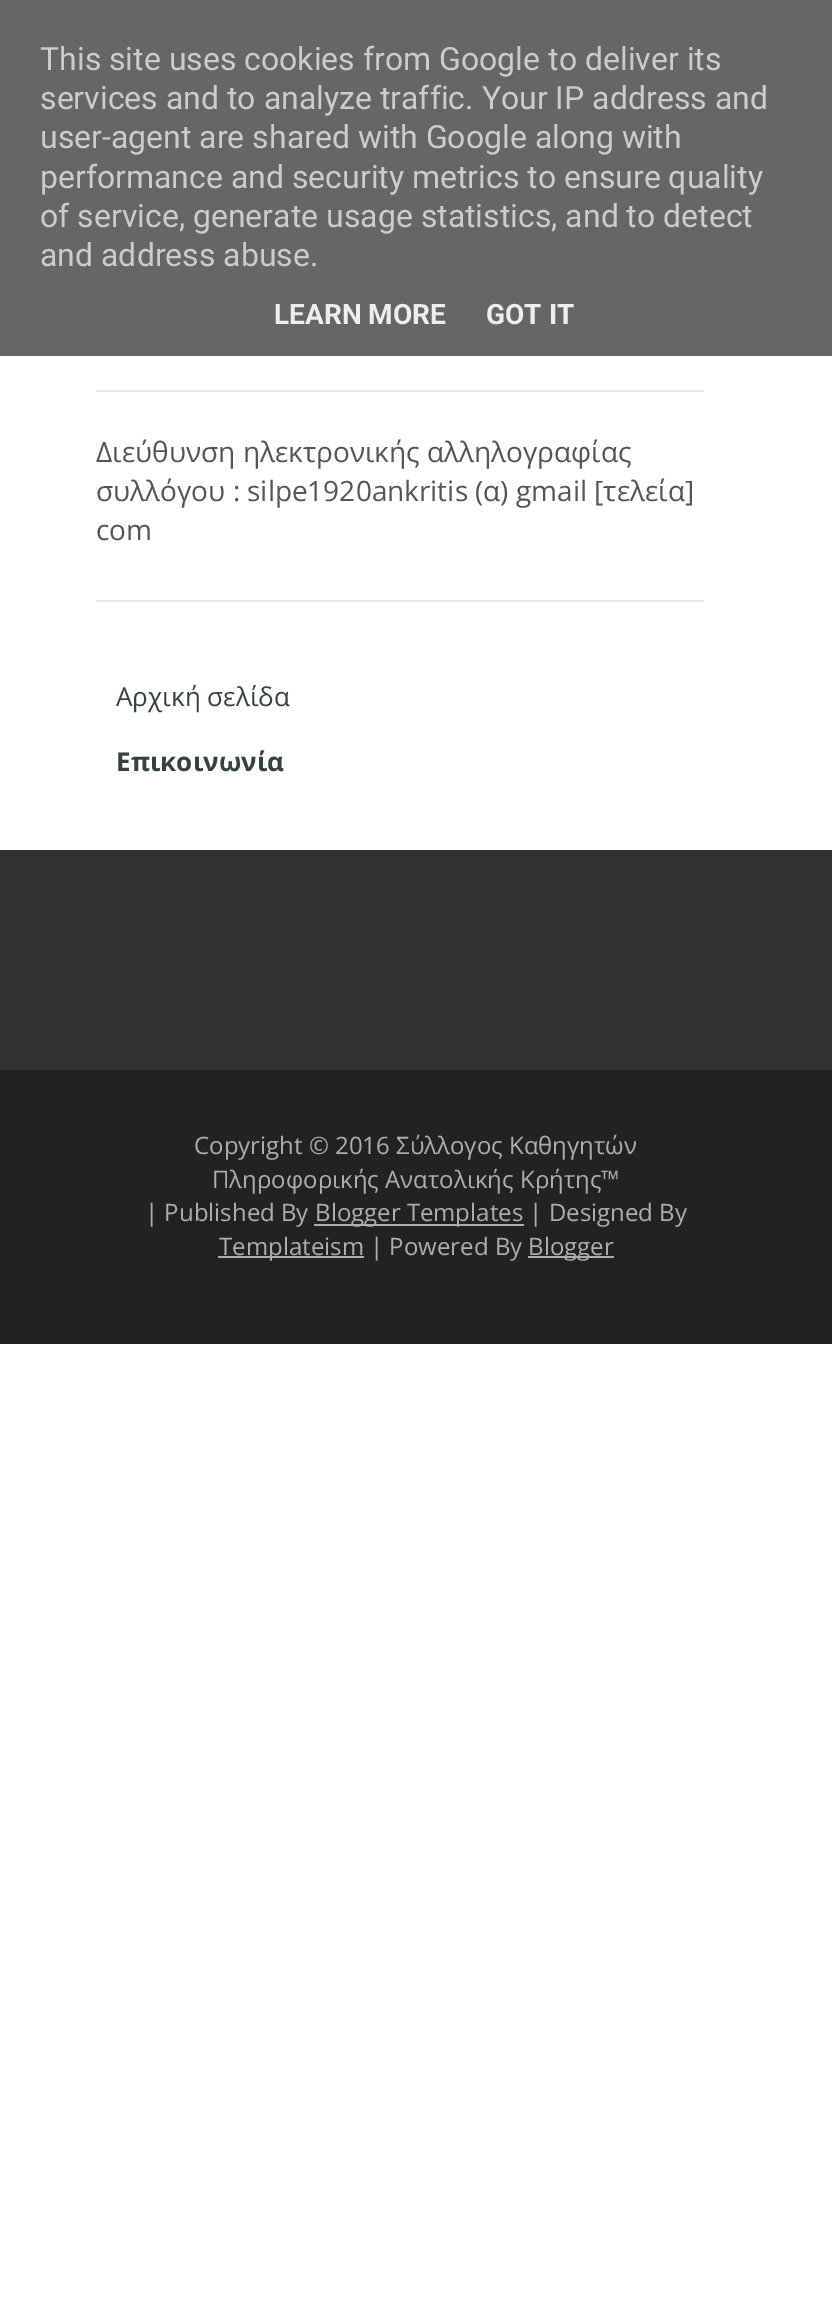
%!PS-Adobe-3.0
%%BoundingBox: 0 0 832 2306
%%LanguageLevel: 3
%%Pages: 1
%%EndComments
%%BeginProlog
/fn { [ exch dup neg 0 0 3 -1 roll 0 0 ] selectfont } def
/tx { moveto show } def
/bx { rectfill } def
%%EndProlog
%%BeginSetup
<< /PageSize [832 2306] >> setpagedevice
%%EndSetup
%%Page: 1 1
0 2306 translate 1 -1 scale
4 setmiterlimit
1 setgray
0 0 832 2306 bx
0.4 setgray
0 0 832 356 bx
/Roboto-Regular 32 fn
0.8 setgray
(This site uses cookies from Google to deliver its) 40 70 tx
(services and to analyze traffic. Your IP address and) 40 109 tx
(user-agent are shared with Google along with) 40 148 tx
(performance and security metrics to ensure quality) 40 188 tx
(of service, generate usage statistics, and to detect) 40 227 tx
(and address abuse.) 40 266 tx
/Roboto-Bold 28 fn
0.933 setgray
(LEARN MORE) 274 324 tx
(GOT IT) 486 324 tx
0.882 0.91 0.929 setrgbcolor
96 600 608 2 bx
96 390 608 2 bx
/OpenSans-Regular 28 fn
0.333 setgray
(Διεύθυνση ηλεκτρονικής αλληλογραφίας) 96 462 tx
(συλλόγου : silpe1920ankritis \(α\) gmail [τελεία]) 96 501 tx
(com) 96 540 tx
/OpenSans-Regular 26 fn
0.216 0.255 0.259 setrgbcolor
(Αρχική σελίδα) 116 706 tx
/OpenSans-Bold 26 fn
(Επικοινωνία) 116 771 tx
0.192 setgray
0 850 832 220 bx
0.141 0.129 0.129 setrgbcolor
0 1070 832 274 bx
/OpenSans-Regular 24 fn
0.682 0.678 0.678 setrgbcolor
(Copyright © 2016 Σύλλογος Καθηγητών) 194 1154 tx
(Πληροφορικής Ανατολικής Κρήτης™) 212 1188 tx
(| Published By) 145 1221 tx
314 1224 210 2 bx
(Blogger Templates | Designed By) 315 1221 tx
218 1256 146 2 bx
(Templateism | Powered By) 219 1255 tx
528 1256 86 2 bx
(Blogger) 528 1255 tx
showpage
%%EOF
